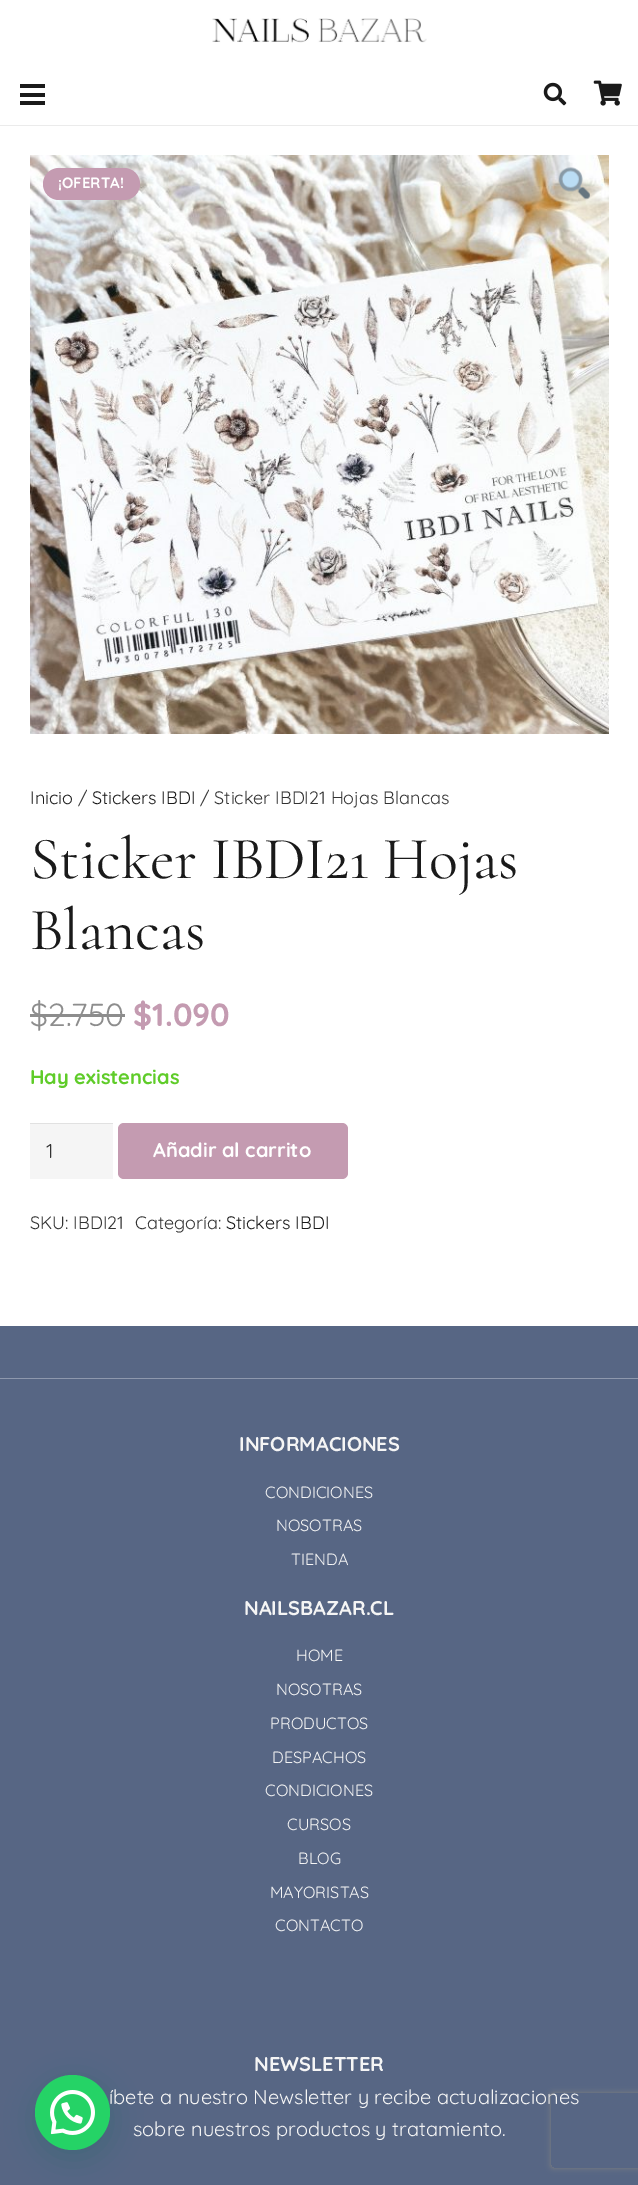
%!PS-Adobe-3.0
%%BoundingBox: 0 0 638 2185
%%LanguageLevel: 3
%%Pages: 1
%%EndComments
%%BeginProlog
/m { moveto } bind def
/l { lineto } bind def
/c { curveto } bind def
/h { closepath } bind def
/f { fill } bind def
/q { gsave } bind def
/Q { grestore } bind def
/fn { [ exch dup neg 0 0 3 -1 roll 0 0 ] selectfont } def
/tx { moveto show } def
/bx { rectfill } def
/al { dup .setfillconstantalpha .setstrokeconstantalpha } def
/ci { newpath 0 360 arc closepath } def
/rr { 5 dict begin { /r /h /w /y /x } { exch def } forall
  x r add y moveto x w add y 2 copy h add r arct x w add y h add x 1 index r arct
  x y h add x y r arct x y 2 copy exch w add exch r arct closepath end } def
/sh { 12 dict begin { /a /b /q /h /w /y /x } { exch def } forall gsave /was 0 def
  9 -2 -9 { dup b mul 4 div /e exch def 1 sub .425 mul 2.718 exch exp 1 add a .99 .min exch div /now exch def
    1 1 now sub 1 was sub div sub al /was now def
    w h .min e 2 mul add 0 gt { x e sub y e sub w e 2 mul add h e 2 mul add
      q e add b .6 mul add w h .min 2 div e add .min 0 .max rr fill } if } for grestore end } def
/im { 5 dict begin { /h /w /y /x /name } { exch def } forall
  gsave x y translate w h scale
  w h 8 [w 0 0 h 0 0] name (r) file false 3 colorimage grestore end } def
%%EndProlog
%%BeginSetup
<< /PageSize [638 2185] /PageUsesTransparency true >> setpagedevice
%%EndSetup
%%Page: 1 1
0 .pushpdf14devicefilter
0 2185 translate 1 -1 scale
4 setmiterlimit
1 setgray
0 0 638 2185 bx
(image0.raw) 212 18 215 25 im
0.922 setgray
0 125 m 0 126 l 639 126 l 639 64 l 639 125 l h f
0.102 setgray
20 93 25 4 bx
20 84 25 4 bx
20 101 25 4 bx
(image1.raw) 543 82 24 24 im
(image2.raw) 593 80 29 26 im
(image3.raw) 30 155 579 579 im
(image4.raw) 558 167 32 32 im
0.769 0.608 0.694 setrgbcolor
43 168 97 32 16 rr f
/Quicksand-Bold 15 fn
1 setgray
(¡OFERTA!) 58 188 tx
/Quicksand-Regular 18 fn
0.102 setgray
(Inicio) 30 804 tx
0.2 setgray
(/) 78 804 tx
0.102 setgray
(Stickers IBDI) 92 804 tx
0.2 setgray
(/ Sticker IBDI21 Hojas Blancas) 200 804 tx
/Cormorant-Regular 60 fn
0.102 setgray
(Sticker IBDI21 Hojas) 30 878 tx
(Blancas) 30 949 tx
/Quicksand-Regular 32 fn
0.553 setgray
($2.750) 30 1026 tx
30 1014 95 3 bx
/Quicksand-Bold 32 fn
0.769 0.608 0.694 setrgbcolor
($1.090) 133 1026 tx
/Quicksand-Bold 20 fn
0.373 0.8 0.161 setrgbcolor
(Hay existencias) 30 1084 tx
0.961 setgray
30 1124 83 55 bx
0.882 setgray
30 1123 83 1 bx
/Quicksand-Regular 20 fn
0.2 setgray
(1) 46 1158 tx
0.769 0.608 0.694 setrgbcolor
118 1123 230 56 6 rr f
/Quicksand-Bold 20 fn
1 setgray
(Añadir al carrito) 153 1157 tx
/Quicksand-Regular 18 fn
0.2 setgray
(SKU: IBDI21) 30 1229 tx
(Categoría:) 135 1229 tx
0.102 setgray
(Stickers IBDI) 226 1229 tx
0.341 0.4 0.518 setrgbcolor
0 1326 638 859 bx
0.027 0.369 0.329 setrgbcolor
36 2083 75 75 37.5 15 0.24 sh
0.145 0.827 0.4 setrgbcolor
72.5 2112.5 37.5 ci f
(image5.raw) 50 2090 45 45 im
0.557 0.596 0.678 setrgbcolor
0 1378 638 1 bx
/Quicksand-Bold 20 fn
0.961 setgray
(INFORMACIONES) 239 1451 tx
/Quicksand-Regular 16.25 fn
(CONDICIONES) 265 1498 tx
(NOSOTRAS) 276 1531 tx
(TIENDA) 291 1565 tx
/Quicksand-Bold 20 fn
(NAILSBAZAR.CL) 244 1615 tx
/Quicksand-Regular 16.25 fn
(HOME) 296 1661 tx
(NOSOTRAS) 276 1695 tx
(PRODUCTOS) 270 1729 tx
(DESPACHOS) 272 1763 tx
(CONDICIONES) 265 1796 tx
(CURSOS) 287 1830 tx
(BLOG) 298 1864 tx
(MAYORISTAS) 270 1898 tx
(CONTACTO) 275 1931 tx
/Quicksand-Bold 20 fn
(NEWSLETTER) 254 2071 tx
/Quicksand-Regular 20 fn
(íbete a nuestro Newsletter y recibe actualizaciones) 109 2104 tx
(sobre nuestros productos y tratamiento.) 133 2136 tx
q
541 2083 m 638 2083 l 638 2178 l 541 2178 l h 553.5 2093 m 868.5 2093 l 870 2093 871 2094 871 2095.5 c 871 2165.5 l 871 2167 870 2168 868.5 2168 c 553.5 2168 l 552 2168 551 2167 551 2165.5 c 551 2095.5 l 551 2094 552 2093 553.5 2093 c h eoclip newpath
0.502 setgray
551 2093 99 75 2.5 3 1 sh
Q
.poppdf14devicefilter showpage
%%EOF
